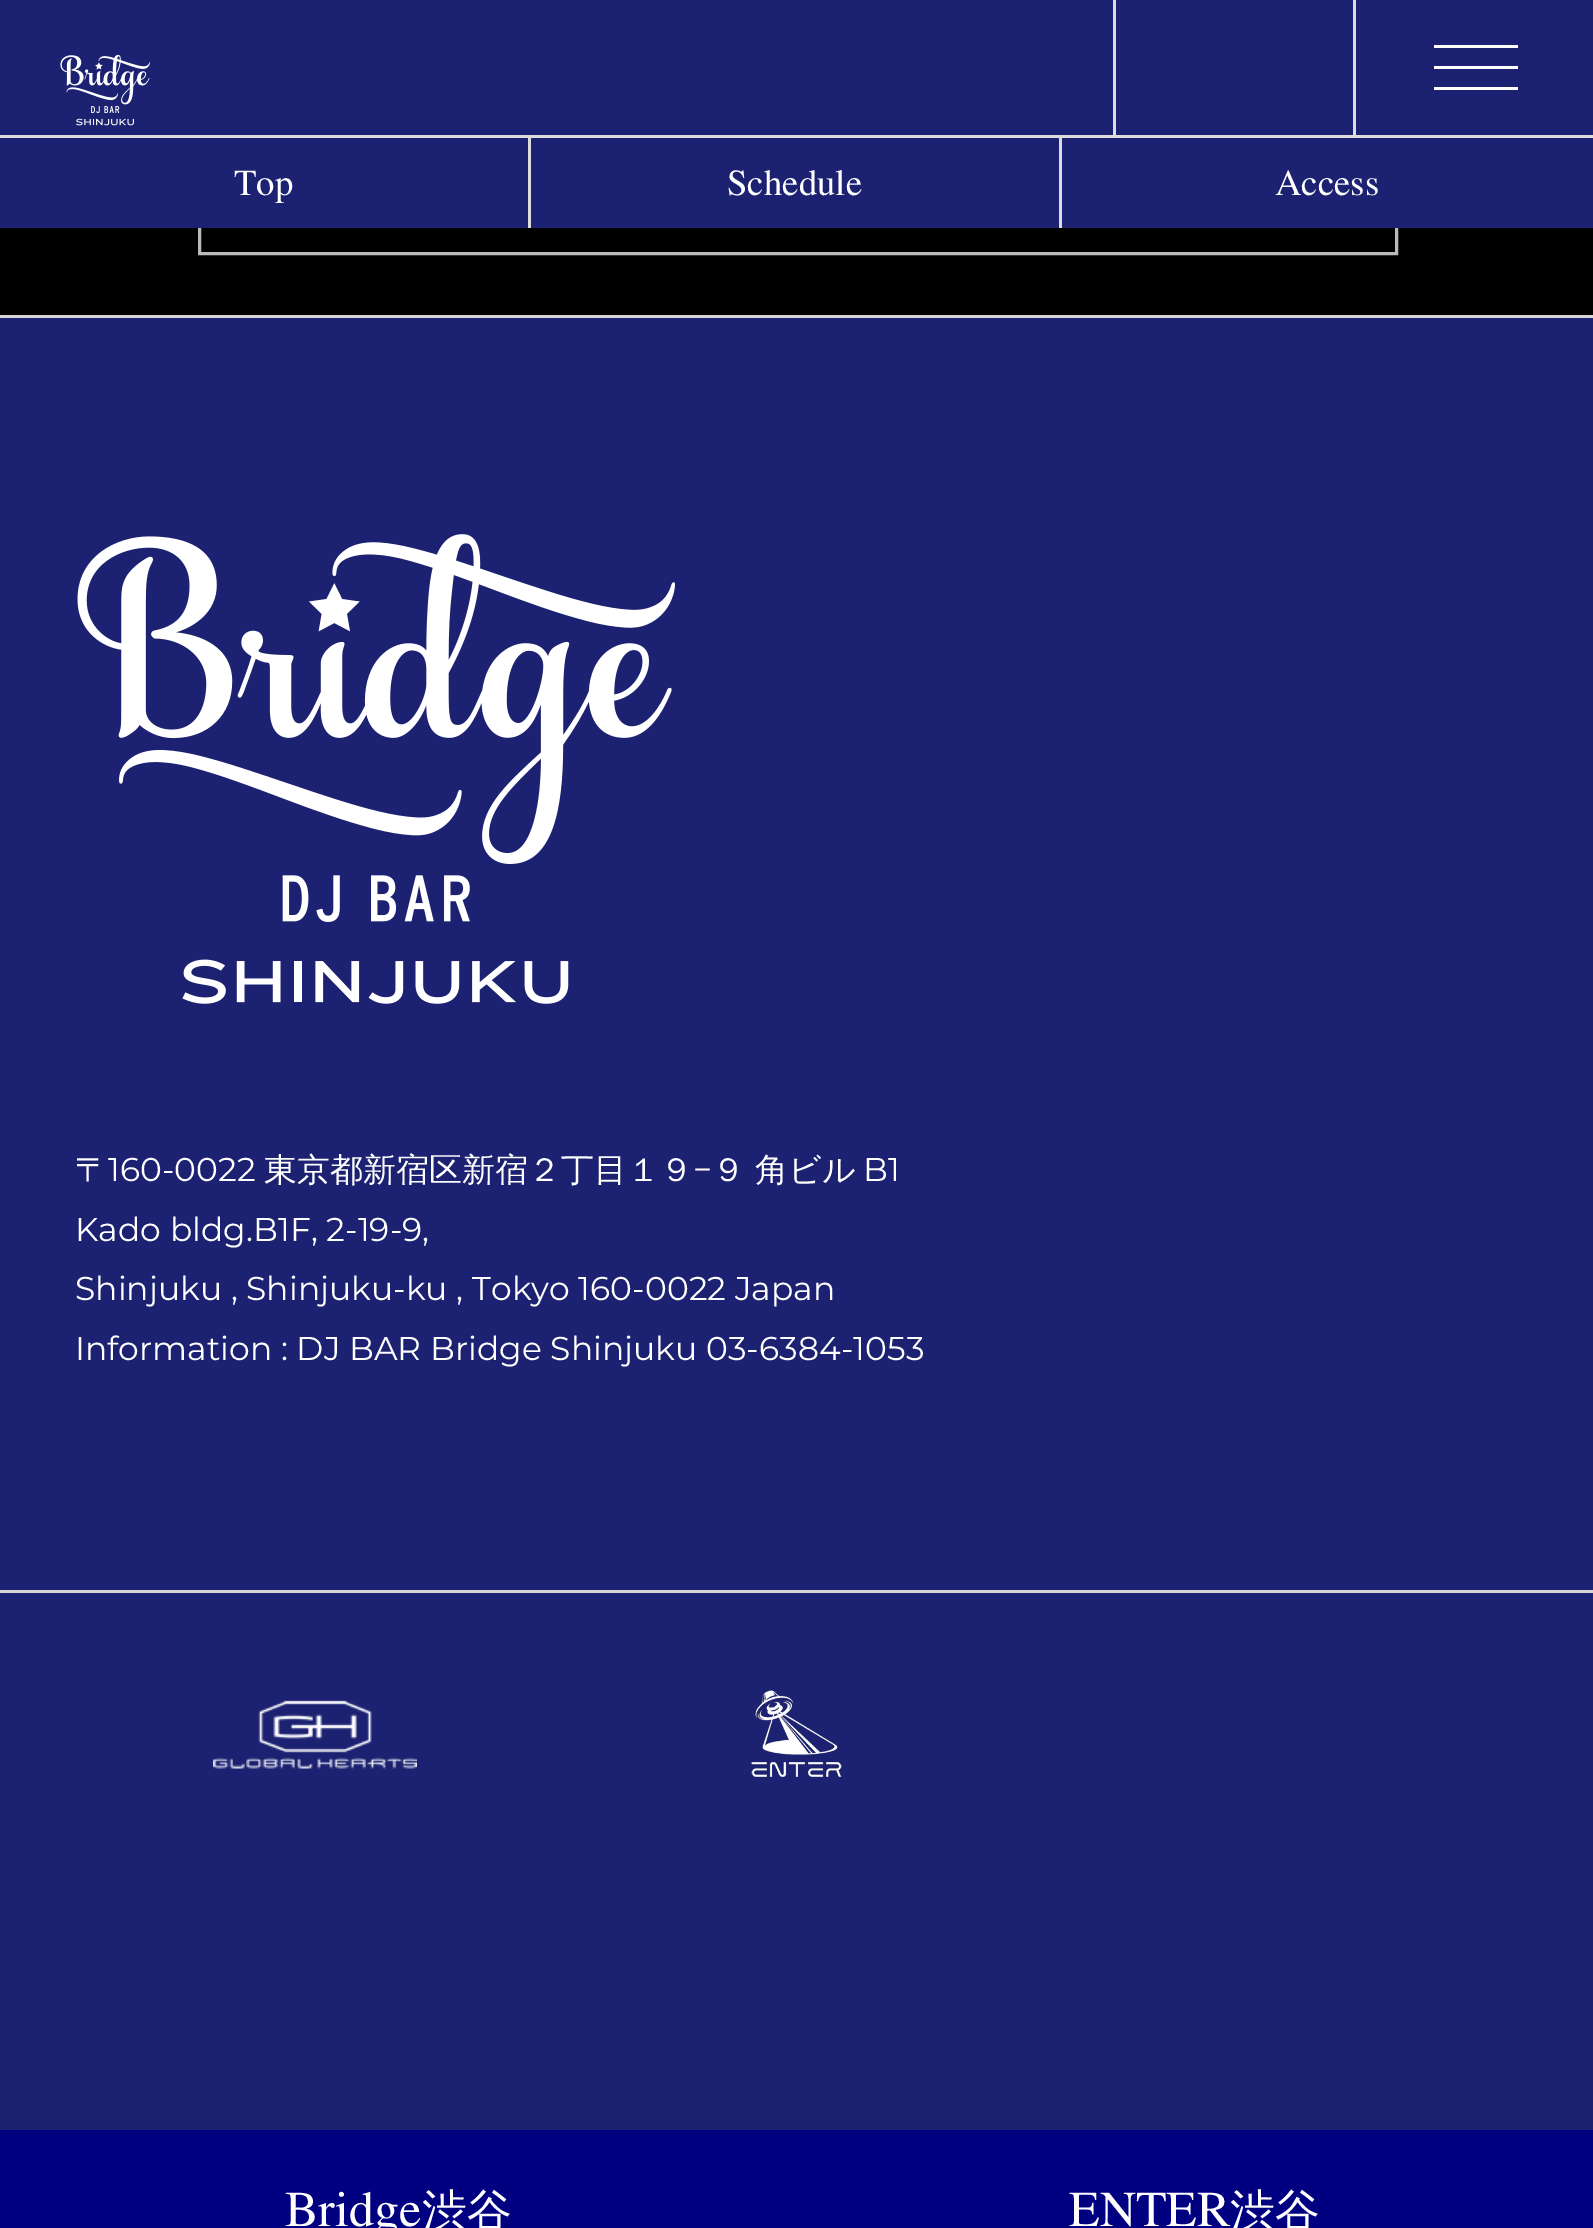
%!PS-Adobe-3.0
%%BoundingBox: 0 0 1593 2228
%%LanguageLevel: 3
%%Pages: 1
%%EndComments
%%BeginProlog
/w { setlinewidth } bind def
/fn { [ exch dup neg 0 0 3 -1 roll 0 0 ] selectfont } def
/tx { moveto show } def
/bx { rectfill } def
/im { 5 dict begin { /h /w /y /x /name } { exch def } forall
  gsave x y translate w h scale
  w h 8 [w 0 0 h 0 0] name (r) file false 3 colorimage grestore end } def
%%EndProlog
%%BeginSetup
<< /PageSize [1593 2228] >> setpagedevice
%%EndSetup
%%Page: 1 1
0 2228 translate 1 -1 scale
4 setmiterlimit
0 setgray
0 0 1593 2228 bx
0.733 setgray
3 w
199.5 79.5 1197 174 rectstroke
0.11 0.133 0.443 setrgbcolor
0 0 1593 135 bx
0.867 setgray
0 135 1593 3 bx
(image0.raw) 60 54 90 72 im
1113 0 3 138 bx
1353 0 3 138 bx
1 setgray
1434 45 84 3 bx
1434 66 84 3 bx
1434 87 84 3 bx
0.11 0.133 0.443 setrgbcolor
0 138 528 90 bx
0.867 setgray
528 138 3 90 bx
/Jomolhari-Regular 33 fn
1 setgray
(Top) 234 195 tx
0.11 0.133 0.443 setrgbcolor
531 138 528 90 bx
0.867 setgray
1059 138 3 90 bx
1 setgray
(Schedule) 727 195 tx
0.11 0.133 0.443 setrgbcolor
1062 138 531 90 bx
1 setgray
(Access) 1275 195 tx
0.11 0.133 0.443 setrgbcolor
0 318 1593 1812 bx
0.839 setgray
0 315 1593 3 bx
(image1.raw) 77 534 598 470 im
/WenQuanYiZenHei-Medium 33 fn
1 setgray
(〒) 75 1181 tx
/Montserrat-Regular 33 fn
(160-0022) 108 1181 tx
/WenQuanYiZenHei-Medium 33 fn
(東京都新宿区新宿２丁目１９) 264 1181 tx
/Montserrat-Regular 33 fn
(−) 693 1181 tx
/WenQuanYiZenHei-Medium 33 fn
(９ 角ビル) 712 1181 tx
/Montserrat-Regular 33 fn
(B1) 863 1181 tx
(Kado bldg.B1F, 2-19-9,) 75 1241 tx
(Shinjuku , Shinjuku-ku , Tokyo 160-0022 Japan) 75 1300 tx
(Information : DJ BAR Bridge Shinjuku 03-6384-1053) 75 1360 tx
0.839 setgray
0 1590 1593 3 bx
(image2.raw) 213 1700 204 69 im
(image3.raw) 751 1690 91 87 im
0 0 0.502 setrgbcolor
0 2130 1593 98 bx
/Jomolhari-Regular 45 fn
1 setgray
(Bridge) 285 2226 tx
/WenQuanYiZenHei-Medium 45 fn
(渋谷) 422 2226 tx
/Jomolhari-Regular 45 fn
(ENTER) 1069 2226 tx
/WenQuanYiZenHei-Medium 45 fn
(渋谷) 1230 2226 tx
showpage
%%EOF
